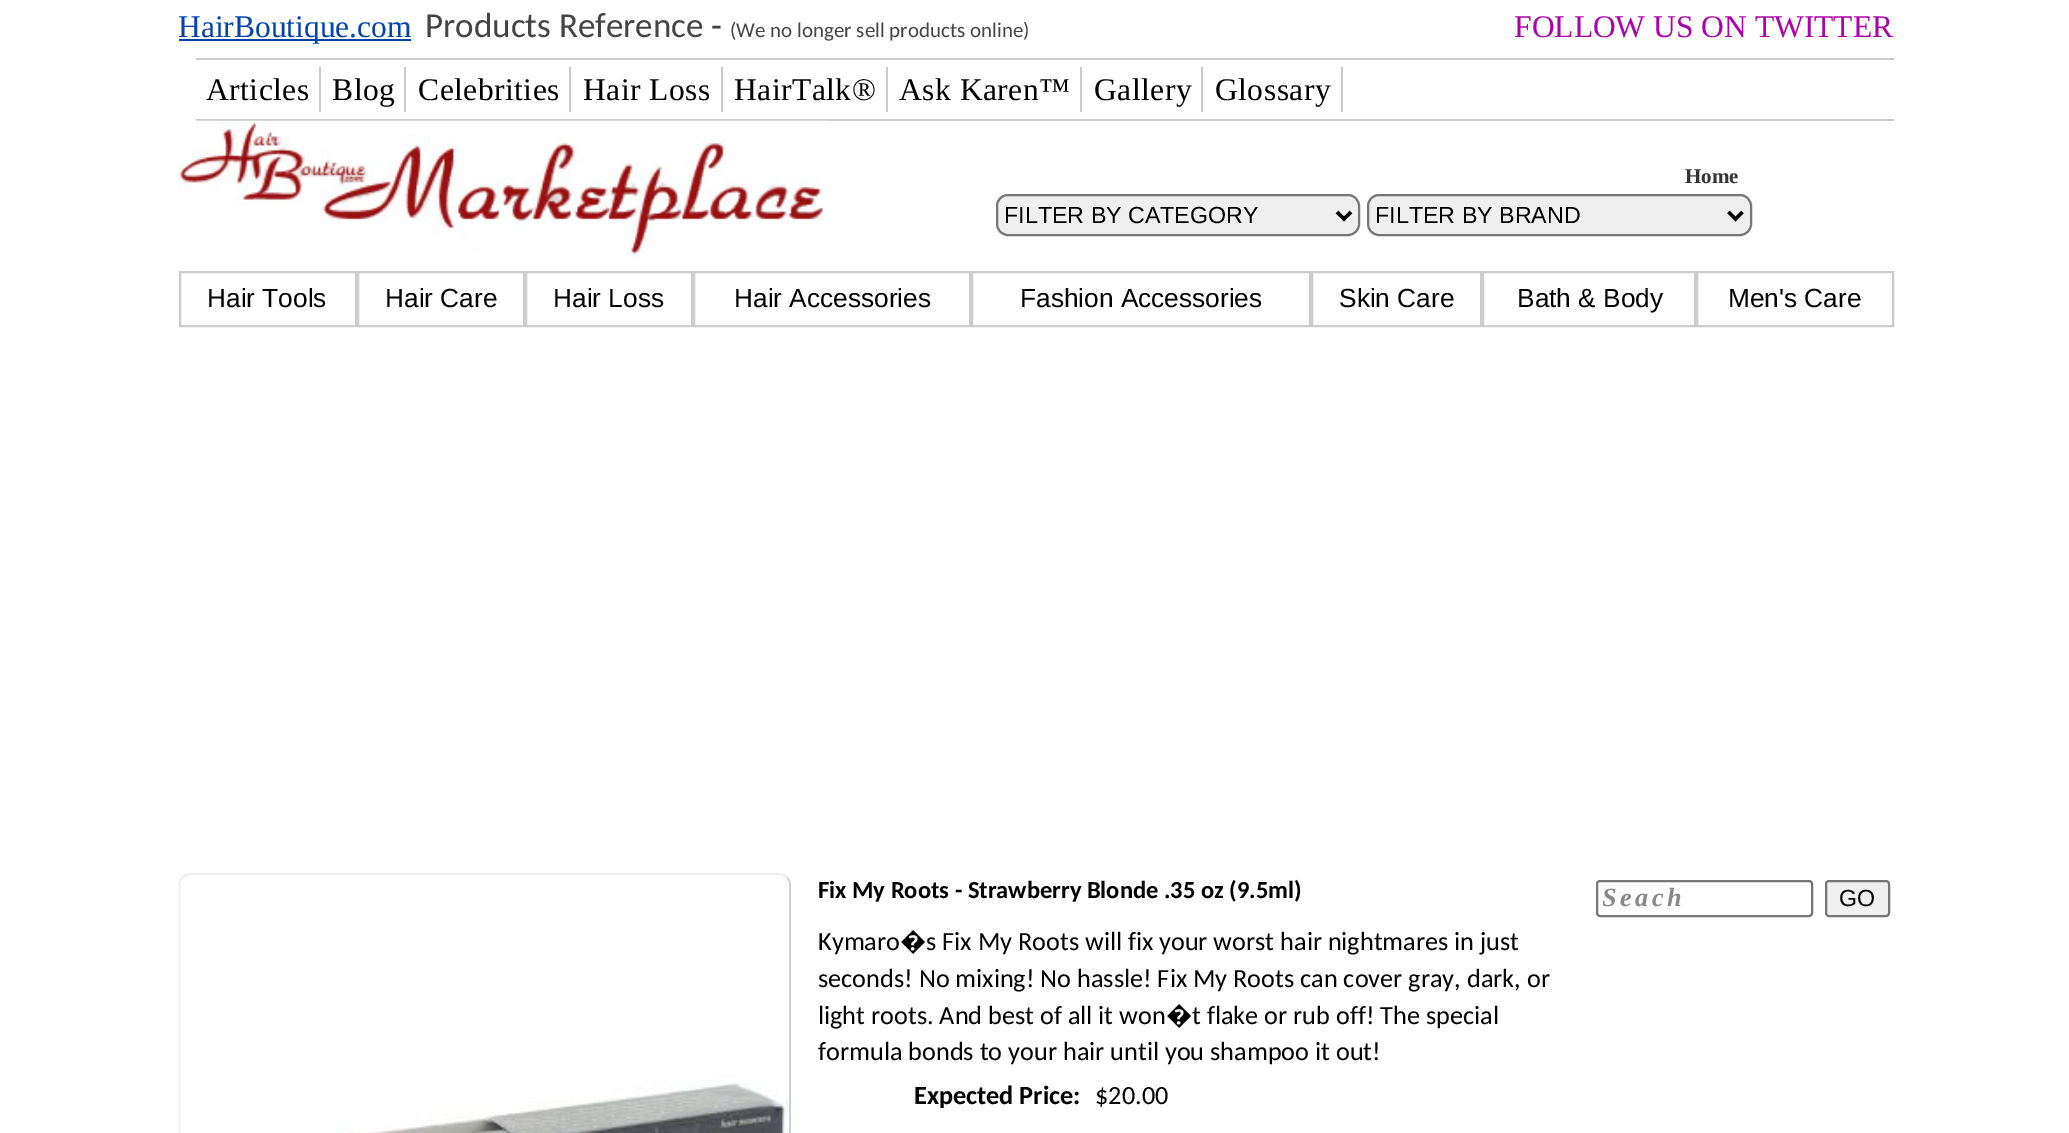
%!PS-Adobe-3.0
%%BoundingBox: 0 0 2069 1133
%%LanguageLevel: 3
%%Pages: 1
%%EndComments
%%BeginProlog
/m { moveto } bind def
/l { lineto } bind def
/c { curveto } bind def
/f { fill } bind def
/S { stroke } bind def
/q { gsave } bind def
/Q { grestore } bind def
/w { setlinewidth } bind def
/fn { [ exch dup neg 0 0 3 -1 roll 0 0 ] selectfont } def
/tx { moveto show } def
/bx { rectfill } def
/rr { 5 dict begin { /r /h /w /y /x } { exch def } forall
  x r add y moveto x w add y 2 copy h add r arct x w add y h add x 1 index r arct
  x y h add x y r arct x y 2 copy exch w add exch r arct closepath end } def
/im { 5 dict begin { /h /w /y /x /name } { exch def } forall
  gsave x y translate w h scale
  w h 8 [w 0 0 h 0 0] name (r) file false 3 colorimage grestore end } def
%%EndProlog
%%BeginSetup
<< /PageSize [2069 1133] >> setpagedevice
%%EndSetup
%%Page: 1 1
0 1133 translate 1 -1 scale
4 setmiterlimit
1 setgray
0 0 2069 1133 bx
0 0.267 0.667 setrgbcolor
179 39 232 2 bx
/LiberationSerif-Regular 31.5 fn
(HairBoutique.com) 178 37 tx
/Carlito-Regular 35 fn
0.267 setgray
(Products Reference -) 425 37 tx
/Carlito-Regular 21 fn
(\(We no longer sell products online\)) 730 37 tx
/LiberationSerif-Regular 31.5 fn
0.667 0 0.667 setrgbcolor
(FOLLOW US ON TWITTER) 1514 37 tx
0.8 setgray
196 58 1698 2 bx
196 119 1698 2 bx
319 67 2 45 bx
0 setgray
206 100 m 0.5 0 (Articles) ashow
0.8 setgray
404 67 2 45 bx
0 setgray
332 100 m 0.5 0 (Blog) ashow
0.8 setgray
569 67 2 45 bx
0 setgray
418 100 m 0.5 0 (Celebrities) ashow
0.8 setgray
721 67 2 45 bx
0 setgray
583 100 m 0.5 0 (Hair Loss) ashow
0.8 setgray
886 67 2 45 bx
0 setgray
734 100 m 0.5 0 (HairTalk®) ashow
0.8 setgray
1080 67 2 45 bx
0 setgray
899 100 m 0.5 0 (Ask Karen™) ashow
0.8 setgray
1201 67 2 45 bx
0 setgray
1094 100 m 0.5 0 (Gallery) ashow
0.8 setgray
1341 67 2 45 bx
0 setgray
1215 100 m 0.5 0 (Glossary) ashow
(image0.raw) 178 120 652 139 im
/LiberationSerif-Bold 21 fn
0.2 setgray
(Home) 1685 183 tx
0.937 setgray
997 195 362 40 11 rr q f Q
0.463 setgray
2 w
S
0 setgray
3.5 w
1337 212 m 1344 219 l 1351 212 l S
/LiberationSans-Regular 23.25 fn
(FILTER BY CATEGORY) 1004 223 tx
0.937 setgray
1368 195 383 40 11 rr q f Q
0.463 setgray
2 w
S
0 setgray
3.5 w
1728.5 212 m 1735.5 219 l 1742.5 212 l S
(FILTER BY BRAND) 1375 223 tx
0.8 setgray
2 w
180 272 176 54 rectstroke
/LiberationSans-Regular 26.25 fn
0 setgray
(Hair Tools) 207 307 tx
0.8 setgray
358 272 166 54 rectstroke
0 setgray
(Hair Care) 385 307 tx
0.8 setgray
526 272 166 54 rectstroke
0 setgray
(Hair Loss) 553 307 tx
0.8 setgray
694 272 276 54 rectstroke
0 setgray
(Hair Accessories) 734 307 tx
0.8 setgray
972 272 338 54 rectstroke
0 setgray
(Fashion Accessories) 1020 307 tx
0.8 setgray
1312 272 169 54 rectstroke
0 setgray
(Skin Care) 1339 307 tx
0.8 setgray
1483 272 212 54 rectstroke
0 setgray
(Bath & Body) 1517 307 tx
0.8 setgray
1697 272 196 54 rectstroke
0 setgray
(Men's Care) 1728 307 tx
0.816 setgray
1.8 w
787 877.5 m 789 879.5 790 882.5 790 885.5 c 790 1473.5 l 790 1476.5 789 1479.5 787 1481.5 c 784.5 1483.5 782 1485 779 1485 c 191 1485 l 187.5 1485 185 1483.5 182.5 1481.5 c S
0.941 setgray
182.5 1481.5 m 180.5 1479.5 179.5 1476.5 179.5 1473.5 c 179.5 885.5 l 179.5 882.5 180.5 879.5 182.5 877.5 c 185 875.5 187.5 874 191 874 c 779 874 l 782 874 784.5 875.5 787 877.5 c S
(image1.raw) 335 878 454 255 im
/Carlito-Bold 24.5 fn
0 setgray
(Fix My Roots - Strawberry Blonde .35 oz \(9.5ml\)) 818 898 tx
/Carlito-Regular 26.25 fn
(Kymaro) 818 950 tx
/NotoSans-Regular 26.25 fn
(�) 900 950 tx
/Carlito-Regular 26.25 fn
(s Fix My Roots will fix your worst hair nightmares in just) 926 950 tx
(seconds! No mixing! No hassle! Fix My Roots can cover gray, dark, or) 818 987 tx
(light roots. And best of all it won) 818 1024 tx
/NotoSans-Regular 26.25 fn
(�) 1166 1024 tx
/Carlito-Regular 26.25 fn
(t flake or rub off! The special) 1192 1024 tx
(formula bonds to your hair until you shampoo it out!) 818 1060 tx
/Carlito-Bold 26.25 fn
(Expected Price:) 914 1104 tx
/Carlito-Regular 26.25 fn
($20.00) 1095 1104 tx
0.463 setgray
2 w
1597 881 215 35 3 rr S
q
1603 884 203 30 rectclip
/LiberationSerif-BoldItalic 26.25 fn
0.533 setgray
1602 906 m 3.5 0 (Seach) ashow
Q
0.937 setgray
1826 881 63 35 3 rr q f Q
0.463 setgray
S
/LiberationSans-Regular 23.25 fn
0 setgray
(GO) 1839 906 tx
showpage
%%EOF
